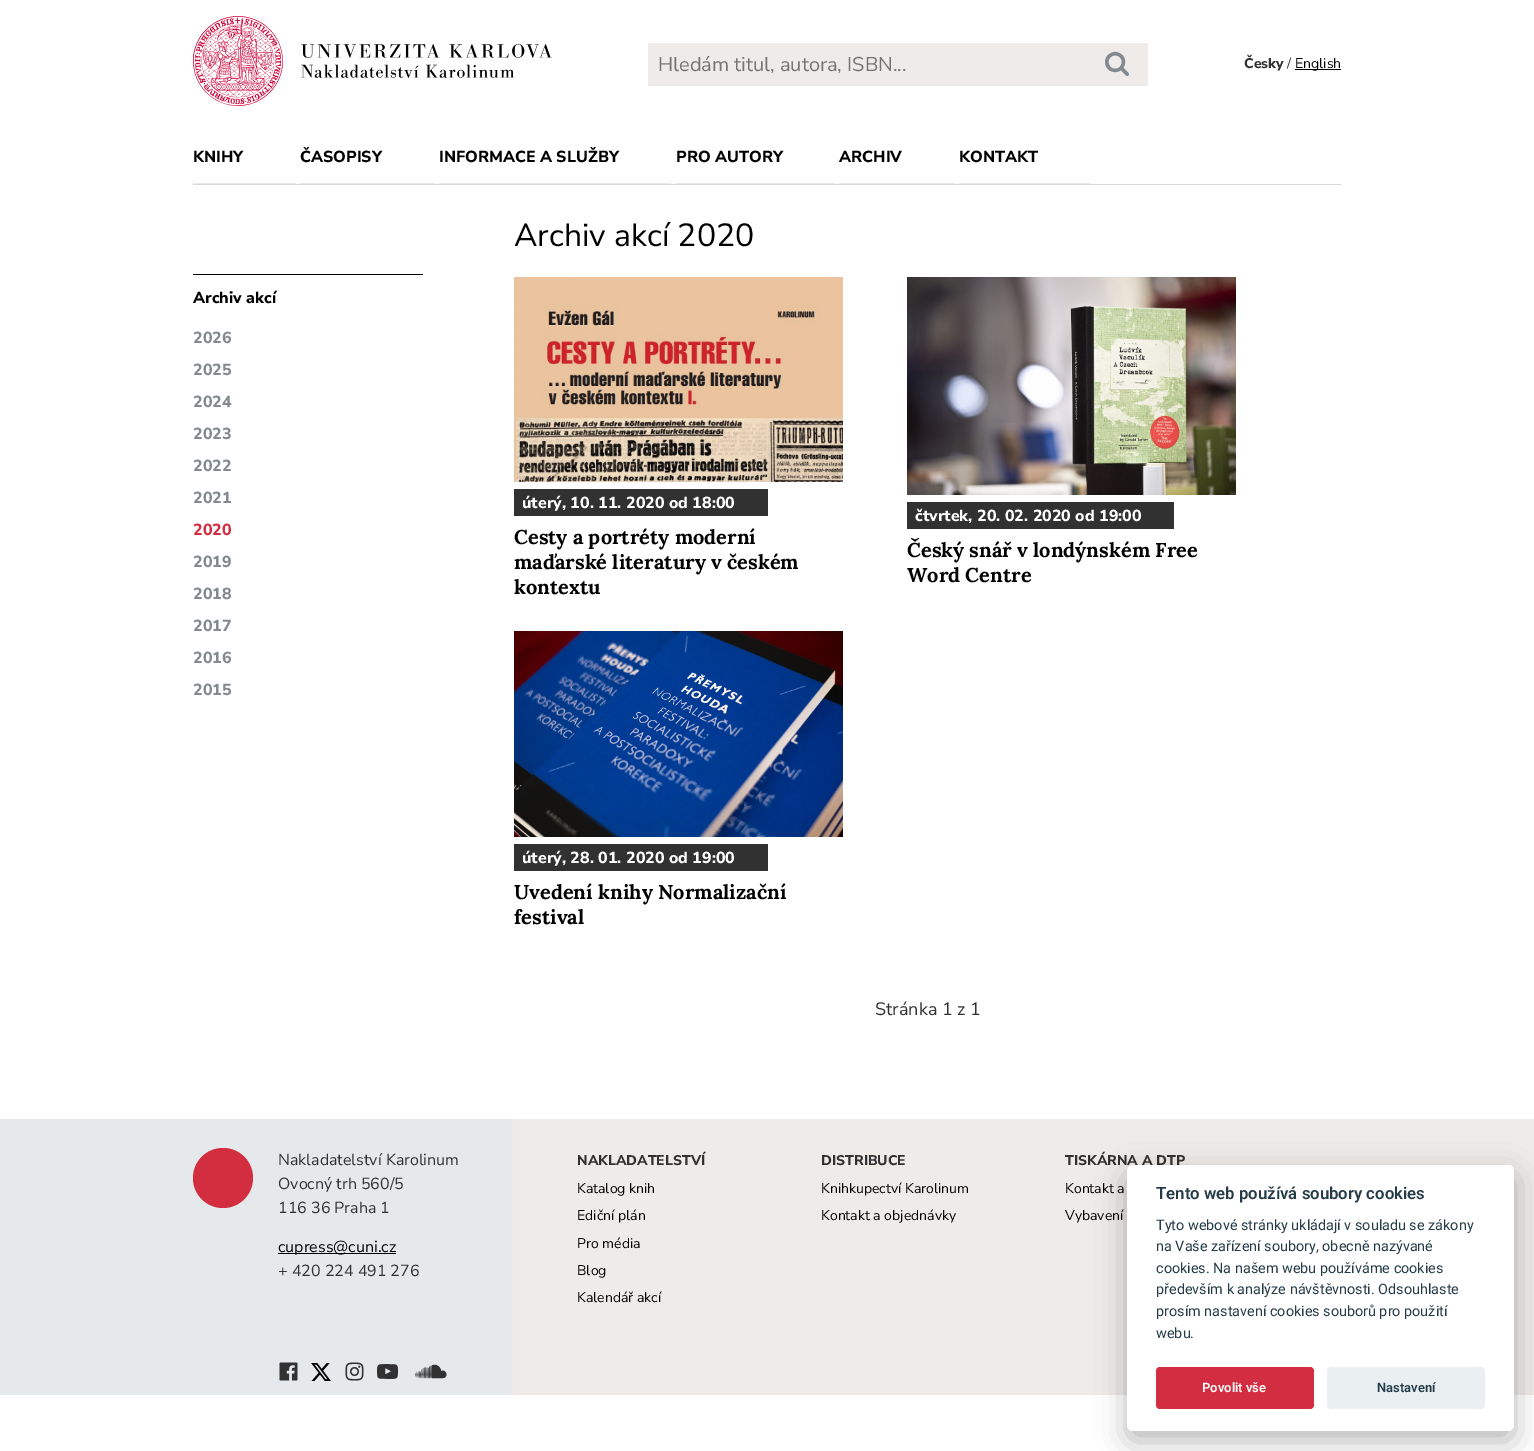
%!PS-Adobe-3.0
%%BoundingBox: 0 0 1534 1451
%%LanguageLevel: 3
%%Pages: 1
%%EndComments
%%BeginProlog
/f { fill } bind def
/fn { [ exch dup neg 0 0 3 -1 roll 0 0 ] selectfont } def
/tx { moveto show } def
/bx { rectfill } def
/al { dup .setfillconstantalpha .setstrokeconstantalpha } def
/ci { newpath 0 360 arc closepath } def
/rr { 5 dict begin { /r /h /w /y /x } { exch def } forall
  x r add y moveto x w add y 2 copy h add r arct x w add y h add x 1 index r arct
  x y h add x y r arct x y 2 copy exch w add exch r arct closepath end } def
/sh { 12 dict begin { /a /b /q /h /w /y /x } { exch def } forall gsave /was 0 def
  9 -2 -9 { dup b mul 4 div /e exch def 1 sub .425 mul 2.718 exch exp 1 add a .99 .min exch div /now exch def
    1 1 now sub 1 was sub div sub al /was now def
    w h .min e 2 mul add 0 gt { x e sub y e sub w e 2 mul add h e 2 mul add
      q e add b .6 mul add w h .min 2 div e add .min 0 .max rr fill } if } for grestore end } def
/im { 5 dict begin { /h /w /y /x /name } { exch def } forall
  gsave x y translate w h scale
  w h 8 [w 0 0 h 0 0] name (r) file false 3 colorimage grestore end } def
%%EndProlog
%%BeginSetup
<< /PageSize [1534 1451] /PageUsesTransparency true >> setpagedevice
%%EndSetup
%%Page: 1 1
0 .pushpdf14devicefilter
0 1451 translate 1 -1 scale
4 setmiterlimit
1 setgray
0 0 1534 1451 bx
(image0.raw) 193 16 359 90 im
0.937 0.922 0.91 setrgbcolor
648 43 500 43 bx
/NunitoSans-Regular 20 fn
0.459 setgray
(Hledám titul, autora, ISBN...) 658 71 tx
(image1.raw) 1105 51 24 25 im
/NunitoSans-ExtraBold 14 fn
0.192 setgray
(Česky) 1244 68 tx
/NunitoSans-Regular 14 fn
(/) 1287 68 tx
0 setgray
1295 69 46 1 bx
(English) 1295 68 tx
0.839 0.855 0.867 setrgbcolor
193 184 1148 1 bx
0.898 0.914 0.925 setrgbcolor
193 183 103 1 bx
/NunitoSans-ExtraBold 16 fn
0 setgray
(KNIHY) 193 162 tx
0.898 0.914 0.925 setrgbcolor
300 183 135 1 bx
0 setgray
(ČASOPISY) 300 162 tx
0.898 0.914 0.925 setrgbcolor
439 183 232 1 bx
0 setgray
(INFORMACE A SLUŽBY) 439 162 tx
0.898 0.914 0.925 setrgbcolor
676 183 159 1 bx
0 setgray
(PRO AUTORY) 676 162 tx
0.898 0.914 0.925 setrgbcolor
839 183 116 1 bx
0 setgray
(ARCHIV) 839 162 tx
0.898 0.914 0.925 setrgbcolor
959 183 132 1 bx
0 setgray
(KONTAKT) 959 162 tx
/NunitoSans-Regular 32 fn
(Archiv akcí 2020) 514 246 tx
193 274 230 1 bx
/NunitoSans-ExtraBold 16 fn
(Archiv akcí) 193 303 tx
0.514 0.541 0.565 setrgbcolor
(2026) 193 343 tx
(2025) 193 375 tx
(2024) 193 407 tx
(2023) 193 439 tx
(2022) 193 471 tx
(2021) 193 503 tx
0.824 0.176 0.251 setrgbcolor
(2020) 193 535 tx
0.514 0.541 0.565 setrgbcolor
(2019) 193 567 tx
(2018) 193 599 tx
(2017) 193 631 tx
(2016) 193 663 tx
(2015) 193 695 tx
(image2.raw) 514 277 329 205 im
0.192 setgray
514 489 254 27 bx
1 setgray
(úterý, 10. 11. 2020 od 18:00) 522 508 tx
/Lora-Bold 20 fn
0 setgray
(Cesty a portréty moderní) 514 544 tx
(maďarské literatury v českém) 514 569 tx
(kontextu) 514 594 tx
(image3.raw) 907 277 329 218 im
0.192 setgray
907 502 267 27 bx
/NunitoSans-ExtraBold 16 fn
1 setgray
(čtvrtek, 20. 02. 2020 od 19:00) 915 521 tx
/Lora-Bold 20 fn
0 setgray
(Český snář v londýnském Free) 907 557 tx
(Word Centre) 907 582 tx
(image4.raw) 514 631 329 206 im
0.192 setgray
514 844 254 27 bx
/NunitoSans-ExtraBold 16 fn
1 setgray
(úterý, 28. 01. 2020 od 19:00) 522 863 tx
/Lora-Bold 20 fn
0 setgray
(Uvedení knihy Normalizační) 514 899 tx
(festival) 514 924 tx
/NunitoSans-Regular 18 fn
0.192 setgray
(Stránka 1 z 1) 875 1015 tx
0.898 0.914 0.925 setrgbcolor
0 1119 513 276 bx
0.827 0.18 0.247 setrgbcolor
223 1178 30 ci f
/NunitoSans-Regular 16 fn
0.192 setgray
(Nakladatelství Karolinum) 278 1165 tx
(Ovocný trh 560/5) 278 1189 tx
(116 36 Praha 1) 278 1213 tx
0 setgray
278 1253 118 1 bx
(cupress@cuni.cz) 278 1252 tx
0.192 setgray
(+ 420 224 491 276) 278 1276 tx
0.937 0.922 0.91 setrgbcolor
513 1119 828 222 bx
/NunitoSans-ExtraBold 14 fn
0.192 setgray
(NAKLADATELSTVÍ) 577 1165 tx
/NunitoSans-Regular 14 fn
0 setgray
(Katalog knih) 577 1193 tx
(Ediční plán) 577 1220 tx
(Pro média) 577 1248 tx
(Blog) 577 1275 tx
(Kalendář akcí) 577 1302 tx
/NunitoSans-ExtraBold 14 fn
0.192 setgray
(DISTRIBUCE) 821 1165 tx
/NunitoSans-Regular 14 fn
0 setgray
(Knihkupectví Karolinum) 821 1193 tx
(Kontakt a objednávky) 821 1220 tx
/NunitoSans-ExtraBold 14 fn
0.192 setgray
(TISKÁRNA A DTP) 1065 1165 tx
/NunitoSans-Regular 14 fn
0 setgray
(Kontakt a) 1065 1193 tx
(Vybavení) 1065 1220 tx
(image5.raw) 279 1362 19 19 im
(image6.raw) 311 1363 20 18 im
(image7.raw) 345 1362 19 19 im
(image8.raw) 377 1364 21 15 im
(image9.raw) 415 1364 32 15 im
0.937 0.922 0.91 setrgbcolor
513 1341 614 54 bx
1341 1119 193 276 bx
0.008 0.008 0.012 setrgbcolor
1127 1175 387 266 6 15 0.28 sh
1 setgray
1127 1165 387 266 6 rr f
/Roboto-SemiBold 16.75 fn
0.145 0.231 0.282 setrgbcolor
(Tento web používá soubory cookies) 1156 1199 tx
/Roboto-Regular 14.4 fn
(Tyto webové stránky ukládají v souladu se zákony) 1156 1230 tx
(na Vaše zařízení soubory, obecně nazývané) 1156 1251 tx
(cookies. Na našem webu používáme cookies) 1156 1273 tx
(především k analýze návštěvnosti. Odsouhlaste) 1156 1294 tx
(prosím nastavení cookies souborů pro použití) 1156 1316 tx
(webu.) 1156 1338 tx
0.824 0.176 0.251 setrgbcolor
1156 1367 158 42 4 rr f
/Roboto-SemiBold 13 fn
1 setgray
(Povolit vše) 1202 1392 tx
0.918 0.937 0.949 setrgbcolor
1327 1367 158 42 4 rr f
0.145 0.231 0.282 setrgbcolor
(Nastavení) 1377 1392 tx
.poppdf14devicefilter showpage
%%EOF
